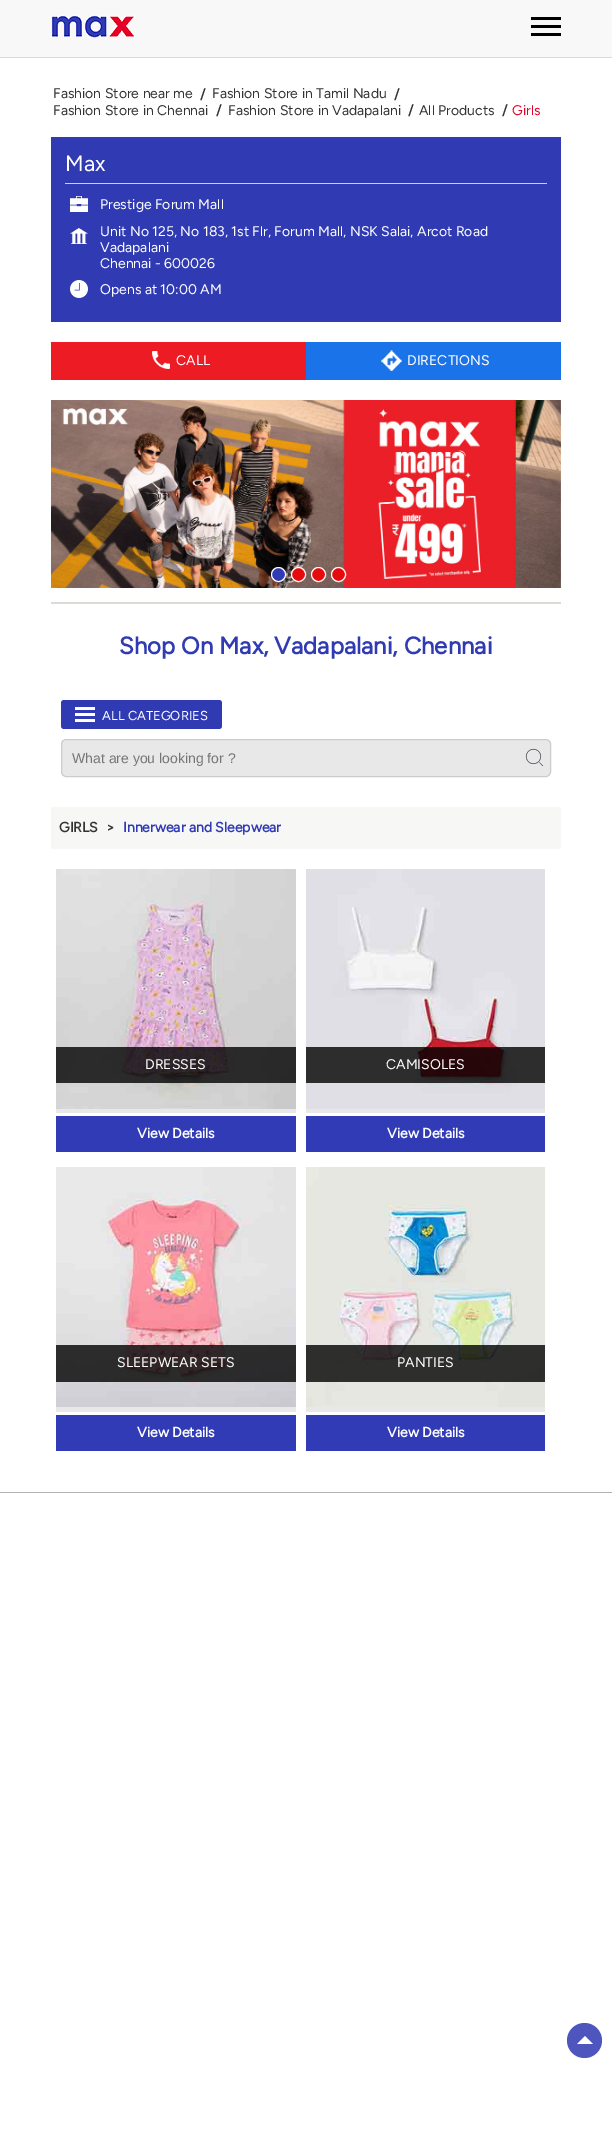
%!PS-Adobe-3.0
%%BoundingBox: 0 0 612 2148
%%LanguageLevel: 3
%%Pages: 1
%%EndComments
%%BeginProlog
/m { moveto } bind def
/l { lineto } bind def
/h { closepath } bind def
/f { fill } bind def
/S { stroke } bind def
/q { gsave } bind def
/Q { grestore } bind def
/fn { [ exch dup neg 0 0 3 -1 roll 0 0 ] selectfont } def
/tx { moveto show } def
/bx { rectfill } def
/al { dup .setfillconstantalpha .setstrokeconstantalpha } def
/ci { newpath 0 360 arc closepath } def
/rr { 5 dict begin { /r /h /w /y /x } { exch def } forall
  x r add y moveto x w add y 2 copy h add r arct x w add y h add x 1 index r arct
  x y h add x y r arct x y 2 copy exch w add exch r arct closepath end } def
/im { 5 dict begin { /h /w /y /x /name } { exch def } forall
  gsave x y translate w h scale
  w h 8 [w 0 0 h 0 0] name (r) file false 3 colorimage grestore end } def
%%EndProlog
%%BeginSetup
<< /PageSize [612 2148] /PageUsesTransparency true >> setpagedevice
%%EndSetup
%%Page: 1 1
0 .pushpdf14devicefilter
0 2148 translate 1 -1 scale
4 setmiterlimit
1 setgray
0 0 612 2148 bx
0.973 setgray
0 0 612 57 bx
0.859 setgray
0 57 612 1 bx
(image0.raw) 51 15 85 23 im
0 setgray
531 25 30 3 bx
531 17 30 3 bx
531 33 30 3 bx
/Figtree-Regular 14 fn
0.2 setgray
(Fashion Store near me) 53 98 tx
/Figtree-Bold 14 fn
(/) 200 99 tx
/Figtree-Regular 14 fn
(Fashion Store in Tamil Nadu) 212 98 tx
/Figtree-Bold 14 fn
(/) 394 99 tx
/Figtree-Regular 14 fn
(Fashion Store in Chennai) 53 115 tx
/Figtree-Bold 14 fn
(/) 216 115 tx
/Figtree-Regular 14 fn
(Fashion Store in Vadapalani) 228 115 tx
/Figtree-Bold 14 fn
(/) 408 115 tx
/Figtree-Regular 14 fn
(All Products) 419 115 tx
/Figtree-Bold 14 fn
(/) 502 115 tx
/Figtree-Regular 14 fn
0.89 0.004 0.161 setrgbcolor
(Girls) 512 115 tx
0.188 0.227 0.702 setrgbcolor
51 137 510 185 bx
0.824 setgray
65 183 482 1 bx
/Figtree-Regular 22 fn
1 setgray
(Max) 65 171 tx
(image1.raw) 70 196 18 16 im
/Figtree-Regular 14 fn
(Prestige Forum Mall) 100 209 tx
(image2.raw) 70 228 18 16 im
(Unit No 125, No 183, 1st Flr, Forum Mall, NSK Salai, Arcot Road) 100 236 tx
(Vadapalani) 100 252 tx
(Chennai - 600026) 100 268 tx
(image3.raw) 70 280 18 18 im
(Opens at 10:00 AM) 100 294 tx
0.929 0.106 0.141 setrgbcolor
51 342 255 38 bx
(image4.raw) 152 351 18 18 im
1 setgray
(CALL) 176 365 tx
0.102 0.451 0.914 setrgbcolor
306 342 255 38 bx
(image5.raw) 381 350 21 21 im
1 setgray
(DIRECTIONS) 407 365 tx
(image6.raw) 51 400 510 188 im
0.188 0.227 0.702 setrgbcolor
278.5 574.5 7 ci q f Q
1 setgray
S
0.898 0.043 0.047 setrgbcolor
298.5 574.5 7 ci q f Q
1 setgray
S
0.898 0.043 0.047 setrgbcolor
318.5 574.5 7 ci q f Q
1 setgray
S
0.898 0.043 0.047 setrgbcolor
338.5 574.5 7 ci q f Q
1 setgray
S
0.863 0.859 0.835 setrgbcolor
51 602 510 2 bx
/Figtree-Bold 24 fn
0.188 0.227 0.702 setrgbcolor
(Shop On Max, Vadapalani, Chennai) 119 654 tx
61 700 161 29 3 rr f
1 setgray
75 707 20 3 bx
75 713 20 3 bx
75 719 20 3 bx
/Figtree-Regular 13 fn
(ALL CATEGORIES) 102 720 tx
0.91 setgray
61.5 739.5 489 37 4.5 rr q f Q
0.8 setgray
S
/LiberationSans-Regular 14 fn
0.459 setgray
(What are you looking for ?) 72 763 tx
(image7.raw) 525 748 19 19 im
0.969 0.969 0.961 setrgbcolor
51 807 510 42 bx
/Figtree-Bold 14 fn
0.2 setgray
(GIRLS) 59 832 tx
(>) 106 832 tx
0.188 0.227 0.702 setrgbcolor
(Innerwear and Sleepwear) 123 832 tx
0.91 setgray
56 1109 240 4 bx
(image8.raw) 56 869 240 240 im
0.8 al
0 setgray
56 1047 240 36 bx
/Figtree-Regular 14 fn
1 al
1 setgray
(DRESSES) 145 1069 tx
0.188 0.231 0.71 setrgbcolor
56 1116 240 36 bx
/Figtree-Bold 14 fn
1 setgray
(View Details) 137 1138 tx
0.91 setgray
306 1109 239 4 bx
(image9.raw) 306 869 239 240 im
0.8 al
0 setgray
306 1047 239 36 bx
/Figtree-Regular 14 fn
1 al
1 setgray
(CAMISOLES) 386 1069 tx
0.188 0.231 0.71 setrgbcolor
306 1116 239 36 bx
/Figtree-Bold 14 fn
1 setgray
(View Details) 387 1138 tx
0.91 setgray
56 1407 240 5 bx
(image10.raw) 56 1167 240 240 im
0.8 al
0 setgray
56 1345 240 37 bx
/Figtree-Regular 14 fn
1 al
1 setgray
(SLEEPWEAR SETS) 117 1367 tx
0.188 0.231 0.71 setrgbcolor
56 1415 240 36 bx
/Figtree-Bold 14 fn
1 setgray
(View Details) 137 1437 tx
0.91 setgray
306 1407 239 5 bx
(image11.raw) 306 1167 239 240 im
0.8 al
0 setgray
306 1345 239 37 bx
/Figtree-Regular 14 fn
1 al
1 setgray
(PANTIES) 397 1367 tx
0.188 0.231 0.71 setrgbcolor
306 1415 239 36 bx
/Figtree-Bold 14 fn
1 setgray
(View Details) 387 1437 tx
0.694 setgray
0 1492 612 1 bx
0.306 0.337 0.745 setrgbcolor
584.5 2040.5 17.5 ci f
1 setgray
593 2044 m 577 2044 l 585 2036 l h f
.poppdf14devicefilter showpage
%%EOF
